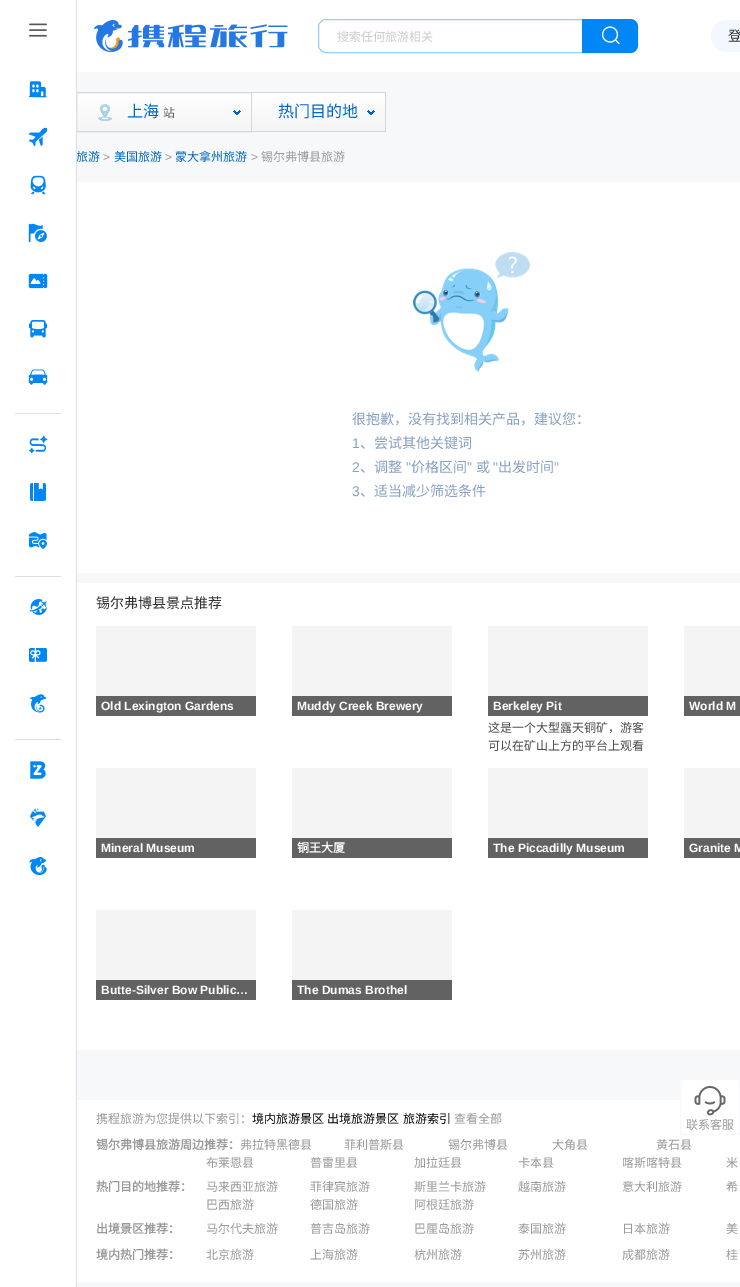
%!PS-Adobe-3.0
%%BoundingBox: 0 0 740 1287
%%LanguageLevel: 3
%%Pages: 1
%%EndComments
%%BeginProlog
/m { moveto } bind def
/l { lineto } bind def
/c { curveto } bind def
/h { closepath } bind def
/f { fill } bind def
/S { stroke } bind def
/q { gsave } bind def
/Q { grestore } bind def
/fn { [ exch dup neg 0 0 3 -1 roll 0 0 ] selectfont } def
/tx { moveto show } def
/bx { rectfill } def
/rr { 5 dict begin { /r /h /w /y /x } { exch def } forall
  x r add y moveto x w add y 2 copy h add r arct x w add y h add x 1 index r arct
  x y h add x y r arct x y 2 copy exch w add exch r arct closepath end } def
/im { 5 dict begin { /h /w /y /x /name } { exch def } forall
  gsave x y translate w h scale
  w h 8 [w 0 0 h 0 0] name (r) file false 3 colorimage grestore end } def
%%EndProlog
%%BeginSetup
<< /PageSize [740 1287] >> setpagedevice
%%EndSetup
%%Page: 1 1
0 1287 translate 1 -1 scale
4 setmiterlimit
0.965 0.973 0.98 setrgbcolor
0 0 740 1287 bx
1 setgray
0 0 76 1287 bx
q 77 93 m 251 93 l 251 131 l 77 131 l h clip newpath
<< /ShadingType 2 /ColorSpace /DeviceRGB /Coords [164 93 164 131] /Extend [true true] /Function << /FunctionType 2 /Domain [0 1] /C0 [1 1 1] /C1 [0.961 0.961 0.961] /N 1 >> >> shfill Q
0.839 setgray
76.5 92.5 175 39 rectstroke
/NotoSansCJKSC-Regular 12 fn
0 0.396 0.733 setrgbcolor
(旅游) 76 161 tx
1 setgray
76 182 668 391 4 rr f
0.855 0.875 0.902 setrgbcolor
76 0 1 1287 bx
(image0.raw) 29 23 18 14 im
(image1.raw) 29 81 18 17 im
(image2.raw) 28 127 20 20 im
(image3.raw) 30 175 16 20 im
(image4.raw) 28 223 19 19 im
(image5.raw) 28 273 20 16 im
(image6.raw) 29 320 18 18 im
(image7.raw) 28 369 20 16 im
15 413 46 1 bx
(image8.raw) 29 435 19 19 im
(image9.raw) 30 483 16 18 im
(image10.raw) 29 532 18 17 im
15 576 46 1 bx
(image11.raw) 30 599 17 16 im
(image12.raw) 29 648 18 14 im
(image13.raw) 29 694 17 19 im
15 739 46 1 bx
(image14.raw) 30 761 16 18 im
(image15.raw) 30 808 16 19 im
(image16.raw) 29 857 18 18 im
1 setgray
77 0 663 72 bx
(image17.raw) 94 20 194 32 im
0.604 0.808 0.984 setrgbcolor
318.5 19.5 319 33 7.5 rr S
0.8 setgray
(搜索任何旅游相关) 337 41 tx
0 0.525 0.965 setrgbcolor
582 19 m 630 19 l 634.5 19 638 22.5 638 27 c 638 45 l 638 49.5 634.5 53 630 53 c 582 53 l h f
(image18.raw) 601 26 19 19 im
0.949 0.973 0.996 setrgbcolor
711 20 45 32 16 rr f
/NotoSansCJKSC-Regular 14 fn
0.2 setgray
(登) 728 41 tx
(image19.raw) 98 104 14 17 im
/NotoSansCJKSC-Regular 16 fn
0 0.4 0.8 setrgbcolor
(上海) 127 117 tx
/NotoSansCJKSC-Regular 12 fn
0.4 setgray
(站) 163 117 tx
(image20.raw) 233 110 8 5 im
q 252 93 m 385 93 l 385 131 l 252 131 l h clip newpath
<< /ShadingType 2 /ColorSpace /DeviceRGB /Coords [319 93 319 131] /Extend [true true] /Function << /FunctionType 2 /Domain [0 1] /C0 [1 1 1] /C1 [0.961 0.961 0.961] /N 1 >> >> shfill Q
0.839 setgray
252 92 134 1 bx
385 92 1 40 bx
252 131 134 1 bx
/NotoSansCJKSC-Regular 16 fn
0 0.4 0.8 setrgbcolor
(热门目的地) 278 117 tx
(image20.raw) 367 110 8 5 im
/LiberationSans-Regular 12 fn
0.6 setgray
(>) 103 161 tx
/NotoSansCJKSC-Regular 12 fn
0 0.396 0.733 setrgbcolor
(美国旅游) 114 161 tx
/LiberationSans-Regular 12 fn
0.6 setgray
(>) 165 161 tx
/NotoSansCJKSC-Regular 12 fn
0 0.396 0.733 setrgbcolor
(蒙大拿州旅游) 175 161 tx
/LiberationSans-Regular 12 fn
0.6 setgray
(>) 251 161 tx
/NotoSansCJKSC-Regular 12 fn
(锡尔弗博县旅游) 261 161 tx
(image21.raw) 413 252 117 120 im
/NotoSansCJKSC-Regular 14 fn
0.537 0.627 0.761 setrgbcolor
(很抱歉，没有找到相关产品，建议您：) 352 424 tx
/LiberationSans-Regular 14 fn
(1) 352 448 tx
/NotoSansCJKSC-Regular 14 fn
(、尝试其他关键词) 360 448 tx
/LiberationSans-Regular 14 fn
(2) 352 472 tx
/NotoSansCJKSC-Regular 14 fn
(、调整) 360 472 tx
/LiberationSans-Regular 14 fn
(") 406 472 tx
/NotoSansCJKSC-Regular 14 fn
(价格区间) 411 472 tx
/LiberationSans-Regular 14 fn
(") 467 472 tx
/NotoSansCJKSC-Regular 14 fn
(或) 476 472 tx
/LiberationSans-Regular 14 fn
(") 493 472 tx
/NotoSansCJKSC-Regular 14 fn
(出发时间) 498 472 tx
/LiberationSans-Regular 14 fn
(") 554 472 tx
(3) 352 496 tx
/NotoSansCJKSC-Regular 14 fn
(、适当减少筛选条件) 360 496 tx
1 setgray
77 583 663 467 bx
0.2 setgray
(锡尔弗博县景点推荐) 96 608 tx
0.957 setgray
96 626 160 70 bx
0.384 setgray
96 696 160 20 bx
/LiberationSans-Bold 12 fn
1 setgray
(Old Lexington Gardens) 101 710 tx
0.957 setgray
292 626 160 70 bx
0.384 setgray
292 696 160 20 bx
1 setgray
(Muddy Creek Brewery) 297 710 tx
0.957 setgray
488 626 160 70 bx
0.384 setgray
488 696 160 20 bx
1 setgray
(Berkeley Pit) 493 710 tx
/NotoSansCJKSC-Regular 12 fn
0.302 setgray
(这是一个大型露天铜矿，游客) 488 732 tx
(可以在矿山上方的平台上观看) 488 750 tx
0.957 setgray
684 626 56 70 bx
0.384 setgray
684 696 56 20 bx
/LiberationSans-Bold 12 fn
1 setgray
(World M) 689 710 tx
0.957 setgray
96 768 160 70 bx
0.384 setgray
96 838 160 20 bx
1 setgray
(Mineral Museum) 101 852 tx
0.957 setgray
292 768 160 70 bx
0.384 setgray
292 838 160 20 bx
/NotoSansCJKSC-Bold 12 fn
1 setgray
(铜王大厦) 297 852 tx
0.957 setgray
488 768 160 70 bx
0.384 setgray
488 838 160 20 bx
/LiberationSans-Bold 12 fn
1 setgray
(The Piccadilly Museum) 493 852 tx
0.957 setgray
684 768 56 70 bx
0.384 setgray
684 838 56 20 bx
1 setgray
(Granite M) 689 852 tx
0.957 setgray
96 910 160 70 bx
0.384 setgray
96 980 160 20 bx
1 setgray
(Butte-Silver Bow Public…) 101 994 tx
0.957 setgray
292 910 160 70 bx
0.384 setgray
292 980 160 20 bx
1 setgray
(The Dumas Brothel) 297 994 tx
77 1100 663 182 bx
/NotoSansCJKSC-Regular 12 fn
0.6 setgray
(携程旅游为您提供以下索引：) 96 1123 tx
0 setgray
(境内旅游景区) 252 1123 tx
(出境旅游景区) 327 1123 tx
(旅游索引) 403 1123 tx
0.6 setgray
(查看全部) 454 1123 tx
/NotoSansCJKSC-Bold 12 fn
(锡尔弗博县旅游周边推荐：) 96 1149 tx
/NotoSansCJKSC-Regular 12 fn
(弗拉特黑德县) 240 1149 tx
(菲利普斯县) 344 1149 tx
(锡尔弗博县) 448 1149 tx
(大角县) 552 1149 tx
(黄石县) 656 1149 tx
(布莱恩县) 206 1167 tx
(普雷里县) 310 1167 tx
(加拉廷县) 414 1167 tx
(卡本县) 518 1167 tx
(喀斯喀特县) 622 1167 tx
(米) 726 1167 tx
/NotoSansCJKSC-Bold 12 fn
(热门目的地推荐：) 96 1191 tx
/NotoSansCJKSC-Regular 12 fn
(马来西亚旅游) 206 1191 tx
(菲律宾旅游) 310 1191 tx
(斯里兰卡旅游) 414 1191 tx
(越南旅游) 518 1191 tx
(意大利旅游) 622 1191 tx
(希) 726 1191 tx
(巴西旅游) 206 1209 tx
(德国旅游) 310 1209 tx
(阿根廷旅游) 414 1209 tx
/NotoSansCJKSC-Bold 12 fn
(出境景区推荐：) 96 1233 tx
/NotoSansCJKSC-Regular 12 fn
(马尔代夫旅游) 206 1233 tx
(普吉岛旅游) 310 1233 tx
(巴厘岛旅游) 414 1233 tx
(泰国旅游) 518 1233 tx
(日本旅游) 622 1233 tx
(美) 726 1233 tx
/NotoSansCJKSC-Bold 12 fn
(境内热门推荐：) 96 1259 tx
/NotoSansCJKSC-Regular 12 fn
(北京旅游) 206 1259 tx
(上海旅游) 310 1259 tx
(杭州旅游) 414 1259 tx
(苏州旅游) 518 1259 tx
(成都旅游) 622 1259 tx
(桂) 726 1259 tx
1 setgray
680.5 1079.5 59 55 1.5 rr q f Q
0.965 0.973 0.98 setrgbcolor
S
(image22.raw) 694 1086 32 30 im
0.6 setgray
(联系客服) 686 1129 tx
showpage
%%EOF
